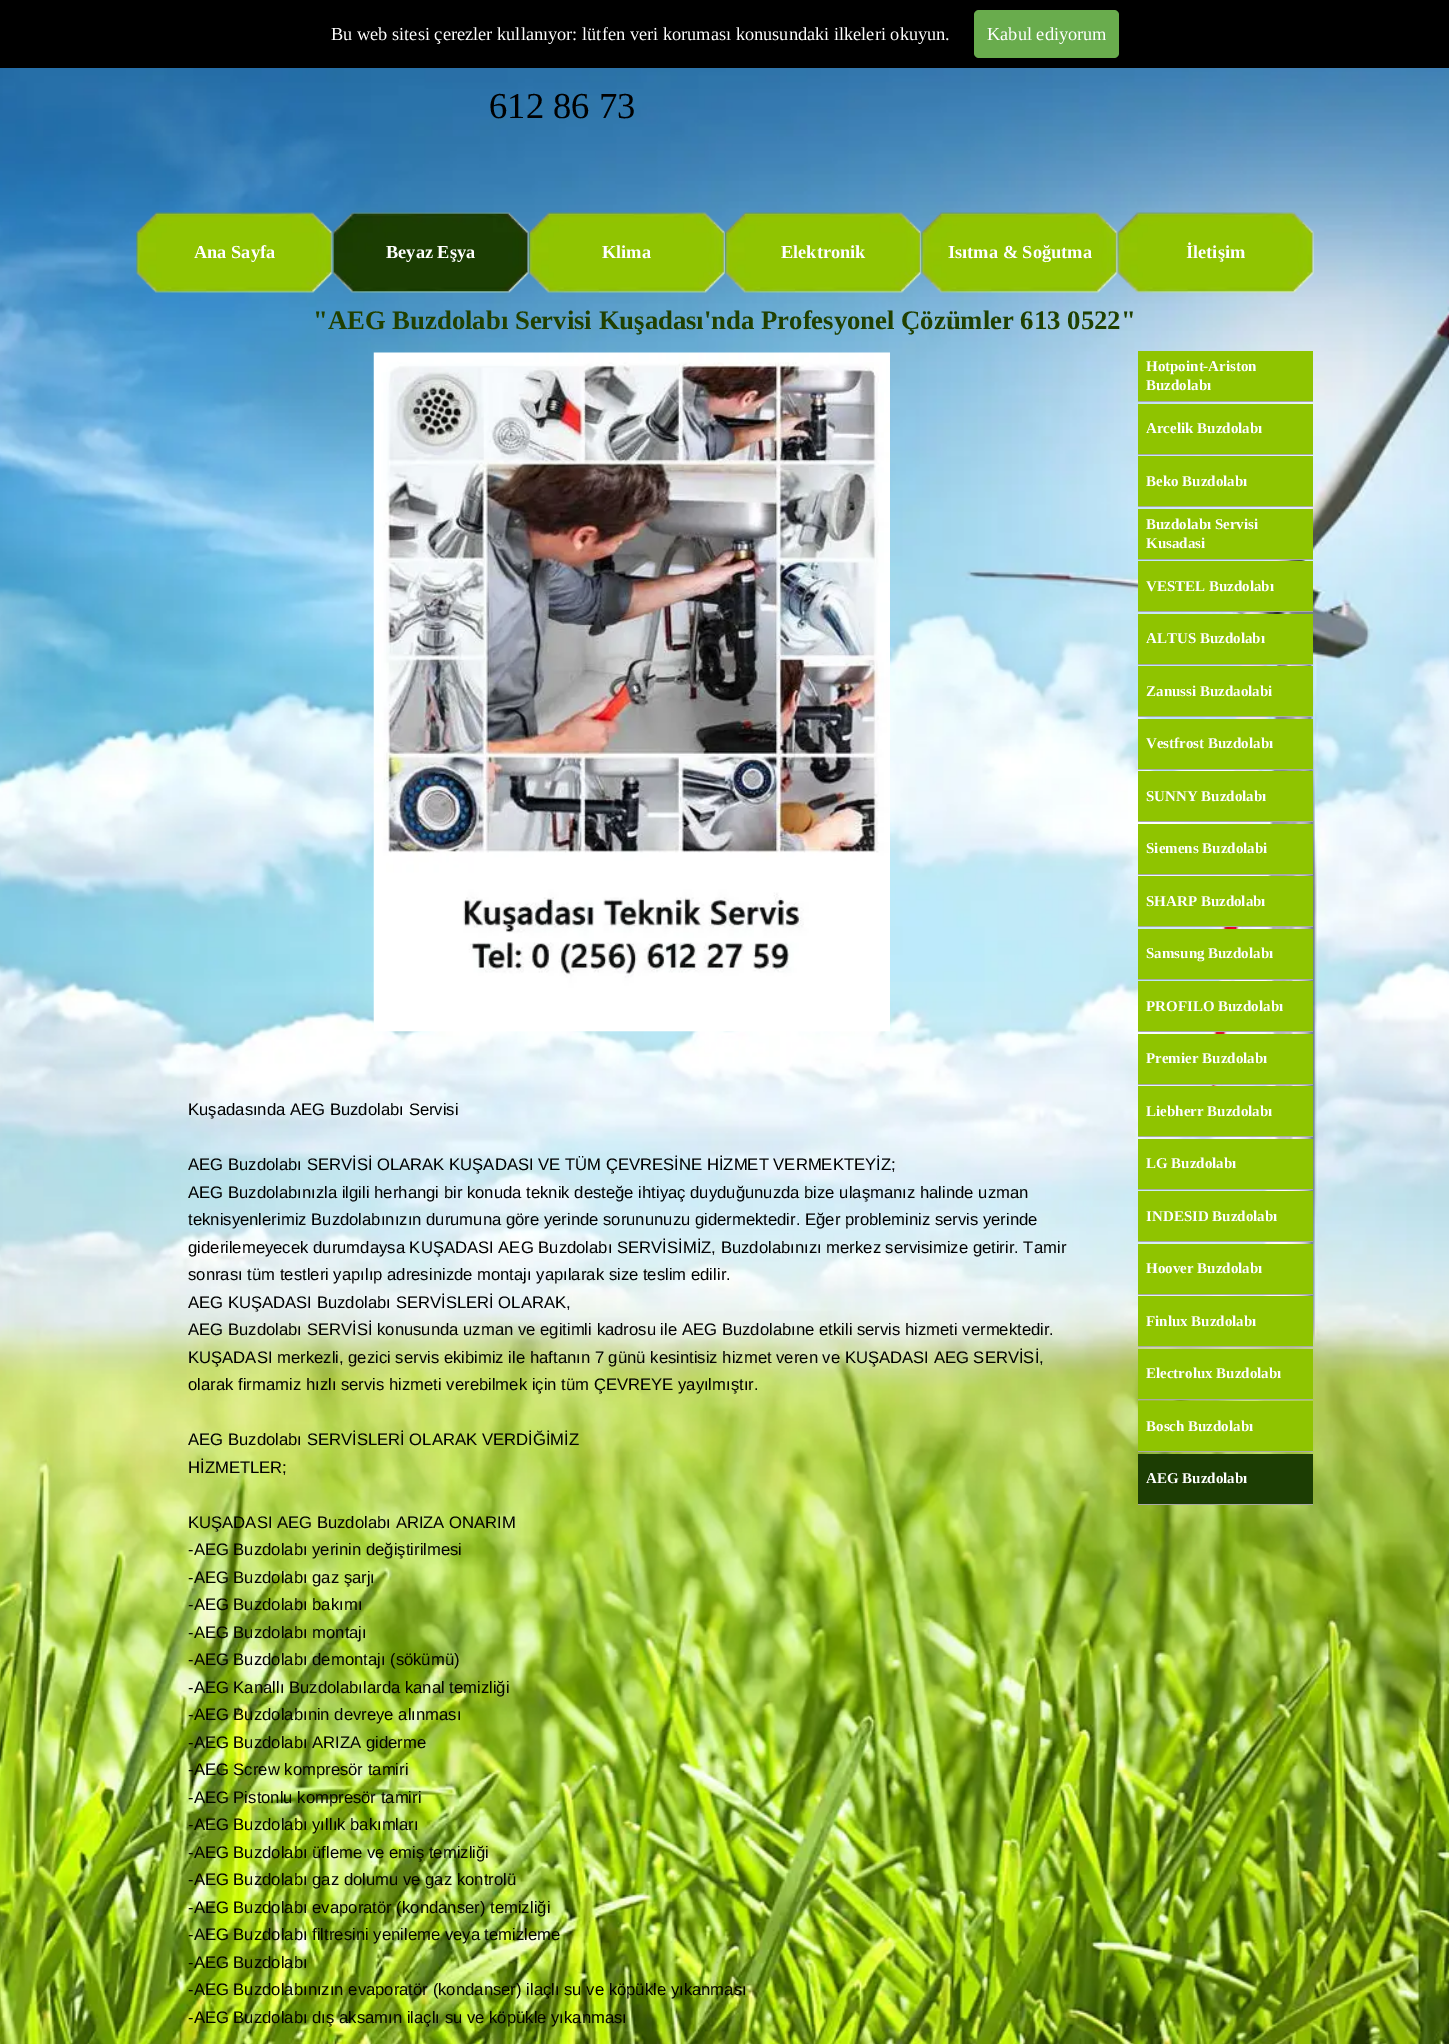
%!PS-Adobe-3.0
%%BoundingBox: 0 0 1449 2044
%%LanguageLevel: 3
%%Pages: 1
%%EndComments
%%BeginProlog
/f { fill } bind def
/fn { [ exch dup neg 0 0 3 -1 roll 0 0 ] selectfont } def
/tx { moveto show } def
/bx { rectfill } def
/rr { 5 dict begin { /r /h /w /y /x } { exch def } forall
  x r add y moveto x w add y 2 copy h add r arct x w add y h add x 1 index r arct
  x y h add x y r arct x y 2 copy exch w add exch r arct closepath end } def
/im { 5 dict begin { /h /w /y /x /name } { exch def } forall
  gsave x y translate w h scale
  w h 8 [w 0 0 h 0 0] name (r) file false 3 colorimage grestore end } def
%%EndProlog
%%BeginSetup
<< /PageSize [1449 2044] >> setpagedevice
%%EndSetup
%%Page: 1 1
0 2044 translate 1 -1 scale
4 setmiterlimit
1 setgray
0 0 1449 2044 bx
0 setgray
0 0 1449 68 bx
/LiberationSerif-Regular 18.35 fn
1 setgray
(Bu web sitesi çerezler kullanıyor: lütfen veri koruması konusundaki ilkeleri okuyun.) 331 40 tx
0.412 0.675 0.302 setrgbcolor
974 10 145 48 5 rr f
1 setgray
(Kabul ediyorum) 987 40 tx
(image0.raw) 0 68 1449 1976 im
/LiberationSerif-Regular 36.5 fn
0 setgray
(612 86 73) 489 118 tx
(image1.raw) 136 212 197 81 im
/LiberationSerif-Bold 18.35 fn
1 setgray
(Ana Sayfa) 194 258 tx
(image2.raw) 332 212 197 81 im
(Beyaz Eşya) 386 258 tx
(image3.raw) 528 212 197 81 im
(Klima) 602 258 tx
(image4.raw) 725 212 197 81 im
(Elektronik) 781 258 tx
(image5.raw) 921 212 197 81 im
(Isıtma & Soğutma) 948 258 tx
(image6.raw) 1117 212 197 81 im
(İletişim) 1186 258 tx
/LiberationSerif-Bold 26.7 fn
0.125 0.251 0 setrgbcolor
("AEG Buzdolabı Servisi Kuşadası'nda Profesyonel Çözümler 613 0522") 313 329 tx
(image7.raw) 373 352 517 680 im
0.561 0.769 0 setrgbcolor
1138 351 175 50 bx
0.663 setgray
1138 401 175 1 bx
/LiberationSerif-Bold 15 fn
1 setgray
(Hotpoint-Ariston) 1146 371 tx
(Buzdolabı) 1146 390 tx
0.561 0.769 0 setrgbcolor
1138 404 175 50 bx
0.663 setgray
1138 454 175 1 bx
1 setgray
(Arcelik Buzdolabı) 1146 433 tx
0.561 0.769 0 setrgbcolor
1138 456 175 50 bx
0.663 setgray
1138 506 175 1 bx
1 setgray
(Beko Buzdolabı) 1146 486 tx
0.561 0.769 0 setrgbcolor
1138 509 175 50 bx
0.663 setgray
1138 559 175 1 bx
1 setgray
(Buzdolabı Servisi) 1146 529 tx
(Kusadasi) 1146 548 tx
0.561 0.769 0 setrgbcolor
1138 561 175 50 bx
0.663 setgray
1138 611 175 1 bx
1 setgray
(VESTEL Buzdolabı) 1146 591 tx
0.561 0.769 0 setrgbcolor
1138 614 175 50 bx
0.663 setgray
1138 664 175 1 bx
1 setgray
(ALTUS Buzdolabı) 1146 643 tx
0.561 0.769 0 setrgbcolor
1138 666 175 50 bx
0.663 setgray
1138 716 175 1 bx
1 setgray
(Zanussi Buzdaolabi) 1146 696 tx
0.561 0.769 0 setrgbcolor
1138 719 175 50 bx
0.663 setgray
1138 769 175 1 bx
1 setgray
(Vestfrost Buzdolabı) 1146 748 tx
0.561 0.769 0 setrgbcolor
1138 771 175 50 bx
0.663 setgray
1138 821 175 1 bx
1 setgray
(SUNNY Buzdolabı) 1146 801 tx
0.561 0.769 0 setrgbcolor
1138 824 175 50 bx
0.663 setgray
1138 874 175 1 bx
1 setgray
(Siemens Buzdolabi) 1146 853 tx
0.561 0.769 0 setrgbcolor
1138 876 175 50 bx
0.663 setgray
1138 926 175 1 bx
1 setgray
(SHARP Buzdolabı) 1146 906 tx
0.561 0.769 0 setrgbcolor
1138 929 175 50 bx
0.663 setgray
1138 979 175 1 bx
1 setgray
(Samsung Buzdolabı) 1146 958 tx
0.561 0.769 0 setrgbcolor
1138 981 175 50 bx
0.663 setgray
1138 1031 175 1 bx
1 setgray
(PROFILO Buzdolabı) 1146 1011 tx
0.561 0.769 0 setrgbcolor
1138 1034 175 50 bx
0.663 setgray
1138 1084 175 1 bx
1 setgray
(Premier Buzdolabı) 1146 1063 tx
0.561 0.769 0 setrgbcolor
1138 1086 175 50 bx
0.663 setgray
1138 1136 175 1 bx
1 setgray
(Liebherr Buzdolabı) 1146 1116 tx
0.561 0.769 0 setrgbcolor
1138 1139 175 50 bx
0.663 setgray
1138 1189 175 1 bx
1 setgray
(LG Buzdolabı) 1146 1168 tx
0.561 0.769 0 setrgbcolor
1138 1191 175 50 bx
0.663 setgray
1138 1241 175 1 bx
1 setgray
(INDESID Buzdolabı) 1146 1221 tx
0.561 0.769 0 setrgbcolor
1138 1244 175 50 bx
0.663 setgray
1138 1294 175 1 bx
1 setgray
(Hoover Buzdolabı) 1146 1273 tx
0.561 0.769 0 setrgbcolor
1138 1296 175 50 bx
0.663 setgray
1138 1346 175 1 bx
1 setgray
(Finlux Buzdolabı) 1146 1326 tx
0.561 0.769 0 setrgbcolor
1138 1349 175 50 bx
0.663 setgray
1138 1399 175 1 bx
1 setgray
(Electrolux Buzdolabı) 1146 1378 tx
0.561 0.769 0 setrgbcolor
1138 1401 175 50 bx
0.663 setgray
1138 1451 175 1 bx
1 setgray
(Bosch Buzdolabı) 1146 1431 tx
0.11 0.239 0.012 setrgbcolor
1138 1454 175 50 bx
0.663 setgray
1138 1504 175 1 bx
1 setgray
(AEG Buzdolabı) 1146 1483 tx
/LiberationSans-Regular 16.67 fn
0 setgray
(Kuşadasında AEG Buzdolabı Servisi) 188 1115 tx
(AEG Buzdolabı SERVİSİ OLARAK KUŞADASI VE TÜM ÇEVRESİNE HİZMET VERMEKTEYİZ;) 188 1170 tx
(AEG Buzdolabınızla ilgili herhangi bir konuda teknik desteğe ihtiyaç duyduğunuzda bize ulaşmanız halinde uzman) 188 1198 tx
(teknisyenlerimiz Buzdolabınızın durumuna göre yerinde sorununuzu gidermektedir. Eğer probleminiz servis yerinde) 188 1225 tx
(giderilemeyecek durumdaysa KUŞADASI AEG Buzdolabı SERVİSİMİZ, Buzdolabınızı merkez servisimize getirir. Tamir) 188 1253 tx
(sonrası tüm testleri yapılıp adresinizde montajı yapılarak size teslim edilir.) 188 1280 tx
(AEG KUŞADASI Buzdolabı SERVİSLERİ OLARAK,) 188 1308 tx
(AEG Buzdolabı SERVİSİ konusunda uzman ve egitimli kadrosu ile AEG Buzdolabıne etkili servis hizmeti vermektedir.) 188 1335 tx
(KUŞADASI merkezli, gezici servis ekibimiz ile haftanın 7 günü kesintisiz hizmet veren ve KUŞADASI AEG SERVİSİ,) 188 1363 tx
(olarak firmamiz hızlı servis hizmeti verebilmek için tüm ÇEVREYE yayılmıştır.) 188 1390 tx
(AEG Buzdolabı SERVİSLERİ OLARAK VERDİĞİMİZ) 188 1445 tx
(HİZMETLER;) 188 1473 tx
(KUŞADASI AEG Buzdolabı ARIZA ONARIM) 188 1528 tx
(-AEG Buzdolabı yerinin değiştirilmesi) 188 1555 tx
(-AEG Buzdolabı gaz şarjı) 188 1583 tx
(-AEG Buzdolabı bakımı) 188 1610 tx
(-AEG Buzdolabı montajı) 188 1638 tx
(-AEG Buzdolabı demontajı \(sökümü\)) 188 1665 tx
(-AEG Kanallı Buzdolabılarda kanal temizliği) 188 1693 tx
(-AEG Buzdolabınin devreye alınması) 188 1720 tx
(-AEG Buzdolabı ARIZA giderme) 188 1748 tx
(-AEG Screw kompresör tamiri) 188 1775 tx
(-AEG Pistonlu kompresör tamiri) 188 1803 tx
(-AEG Buzdolabı yıllık bakımları) 188 1830 tx
(-AEG Buzdolabı üfleme ve emiş temizliği) 188 1858 tx
(-AEG Buzdolabı gaz dolumu ve gaz kontrolü) 188 1885 tx
(-AEG Buzdolabı evaporatör \(kondanser\) temizliği) 188 1913 tx
(-AEG Buzdolabı filtresini yenileme veya temizleme) 188 1940 tx
(-AEG Buzdolabı) 188 1968 tx
(-AEG Buzdolabınızın evaporatör \(kondanser\) ilaçlı su ve köpükle yıkanması) 188 1995 tx
(-AEG Buzdolabı dış aksamın ilaçlı su ve köpükle yıkanması) 188 2023 tx
showpage
%%EOF
